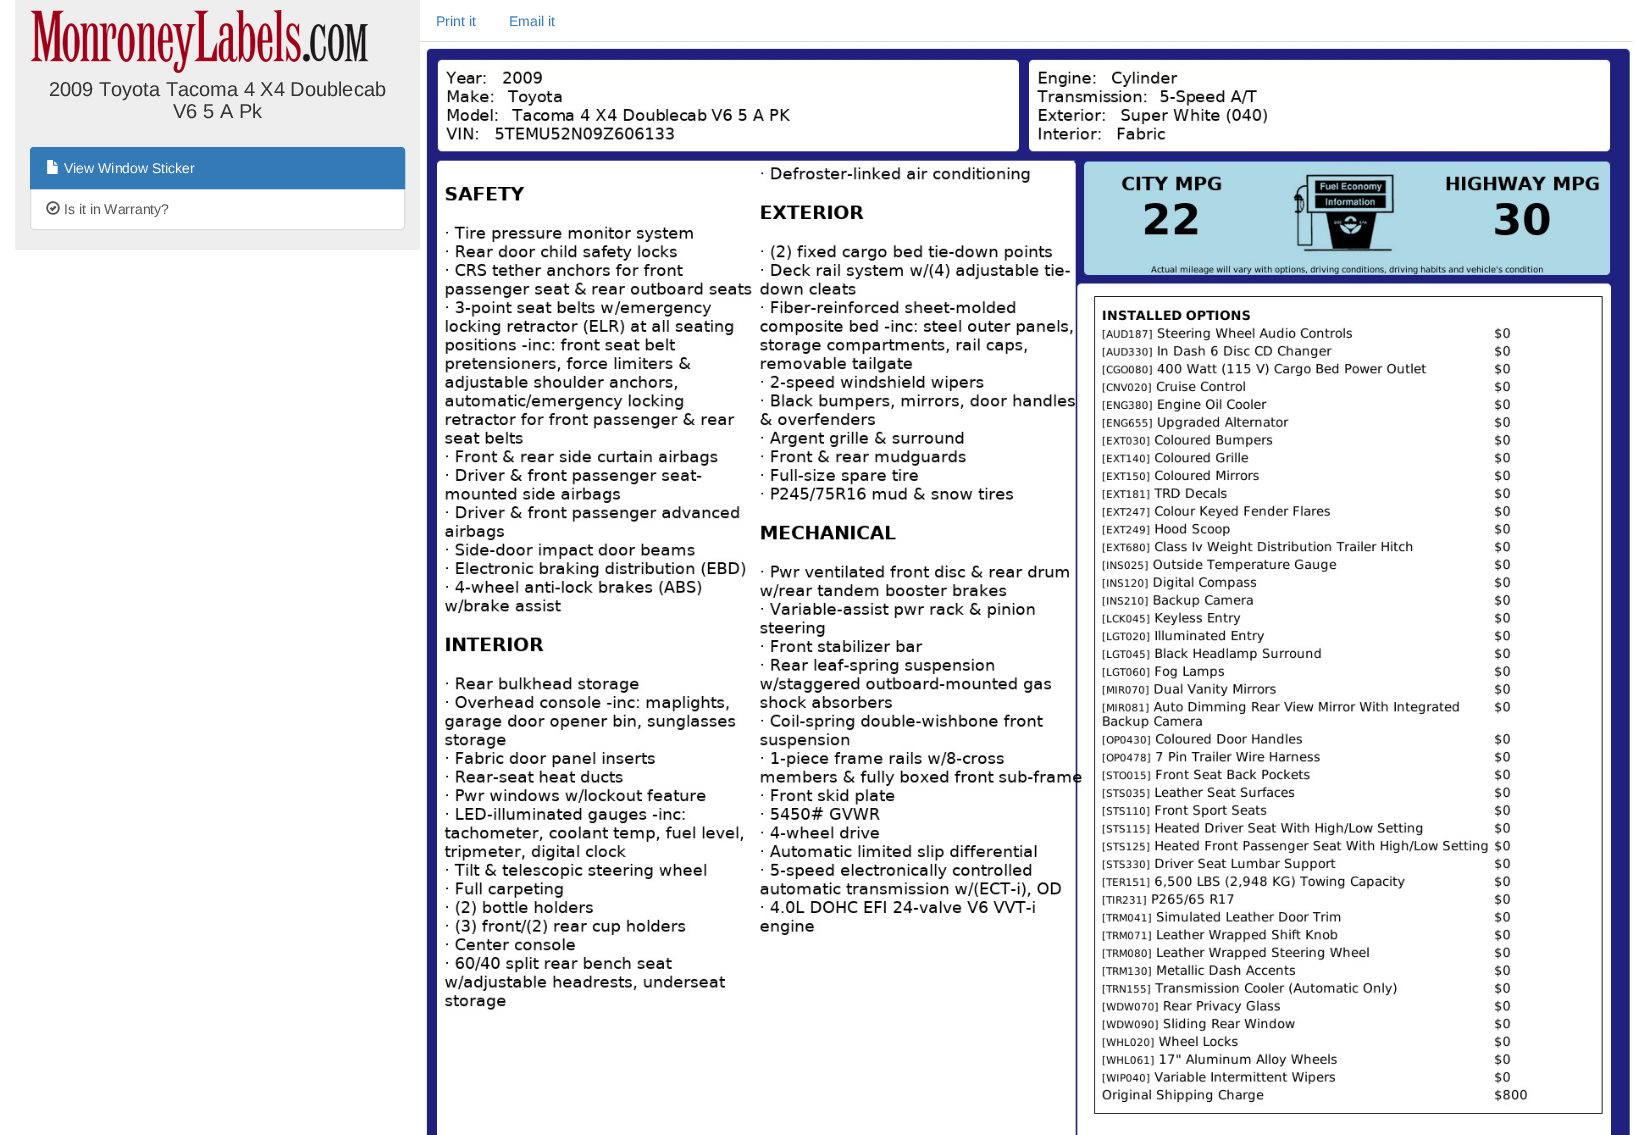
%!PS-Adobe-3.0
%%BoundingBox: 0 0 1648 1135
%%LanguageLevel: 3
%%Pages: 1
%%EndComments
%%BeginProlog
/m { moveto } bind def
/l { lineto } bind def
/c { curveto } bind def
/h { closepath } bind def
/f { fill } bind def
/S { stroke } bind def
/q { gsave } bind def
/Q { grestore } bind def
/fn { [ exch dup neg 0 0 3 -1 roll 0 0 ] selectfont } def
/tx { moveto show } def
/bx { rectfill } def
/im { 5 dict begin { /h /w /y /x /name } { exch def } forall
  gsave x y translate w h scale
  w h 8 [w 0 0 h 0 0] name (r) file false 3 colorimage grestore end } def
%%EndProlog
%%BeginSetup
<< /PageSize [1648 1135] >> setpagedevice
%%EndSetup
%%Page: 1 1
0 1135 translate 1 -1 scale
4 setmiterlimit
1 setgray
0 0 1648 1135 bx
0.867 setgray
420 41 1213 1 bx
/LiberationSans-Regular 14 fn
0.2 0.478 0.718 setrgbcolor
(Print it) 436 26 tx
(Email it) 509 26 tx
(image0.raw) 420 42 1213 1093 im
0.933 setgray
15 0 405 250 bx
(image1.raw) 30 10 339 63 im
/LiberationSans-Regular 20 fn
0.2 setgray
(2009 Toyota Tacoma 4 X4 Doublecab) 49 96 tx
(V6 5 A Pk) 173 118 tx
1 setgray
30.5 188.5 m 404.5 188.5 l 404.5 226 l 404.5 228 403 229.5 401 229.5 c 34 229.5 l 32 229.5 30.5 228 30.5 226 c h q f Q
0.867 setgray
S
0.2 0.478 0.718 setrgbcolor
34 147.5 m 401 147.5 l 403 147.5 404.5 149 404.5 151 c 404.5 188.5 l 30.5 188.5 l 30.5 151 l 30.5 149 32 147.5 34 147.5 c h q f Q
S
(image2.raw) 47 160 11 14 im
/LiberationSans-Regular 14 fn
1 setgray
(View Window Sticker) 64 173 tx
(image3.raw) 46 201 14 14 im
0.333 setgray
(Is it in Warranty?) 64 214 tx
showpage
%%EOF
